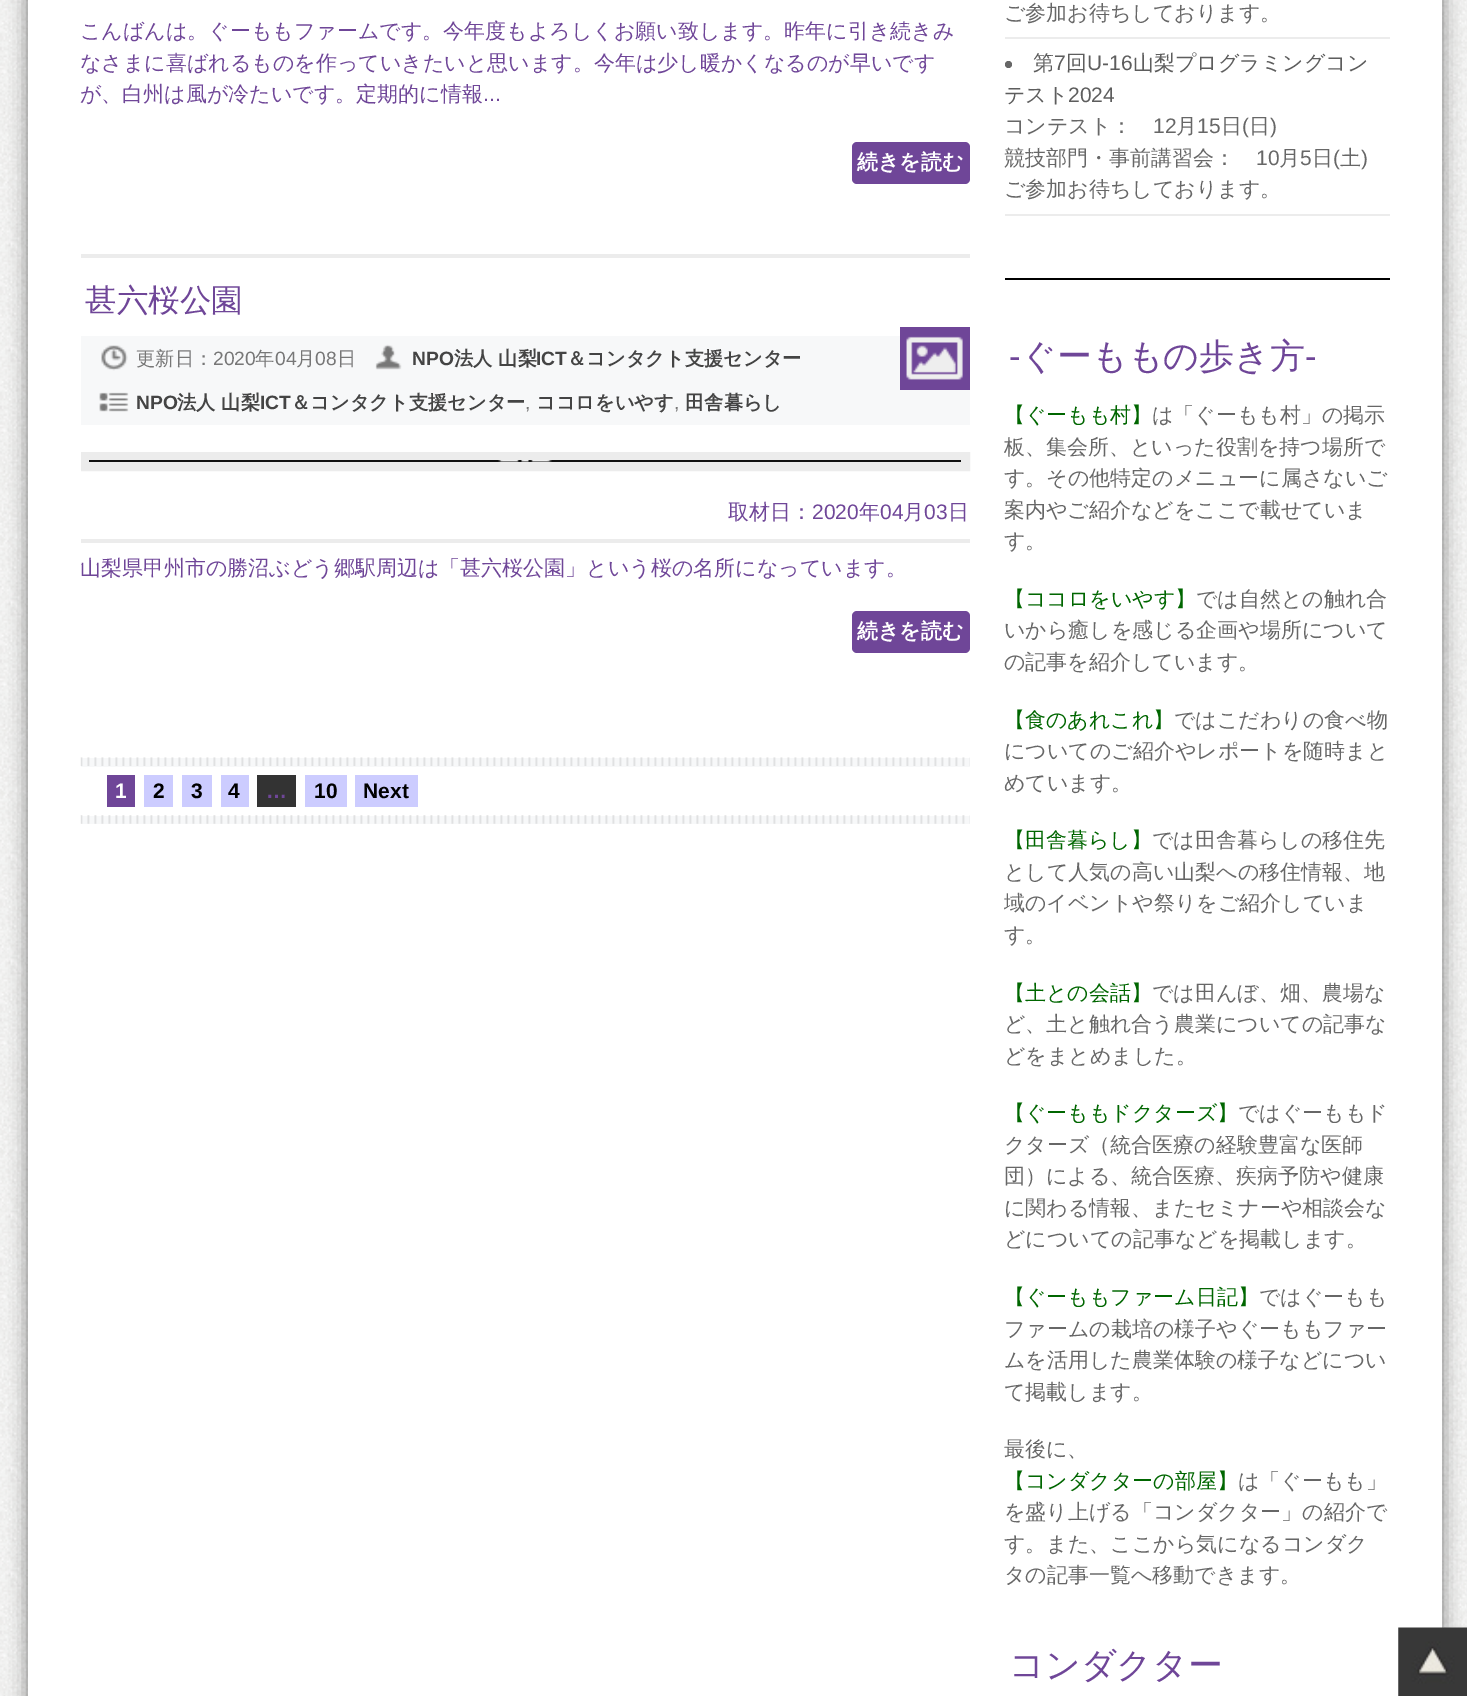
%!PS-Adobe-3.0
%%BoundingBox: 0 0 1467 1696
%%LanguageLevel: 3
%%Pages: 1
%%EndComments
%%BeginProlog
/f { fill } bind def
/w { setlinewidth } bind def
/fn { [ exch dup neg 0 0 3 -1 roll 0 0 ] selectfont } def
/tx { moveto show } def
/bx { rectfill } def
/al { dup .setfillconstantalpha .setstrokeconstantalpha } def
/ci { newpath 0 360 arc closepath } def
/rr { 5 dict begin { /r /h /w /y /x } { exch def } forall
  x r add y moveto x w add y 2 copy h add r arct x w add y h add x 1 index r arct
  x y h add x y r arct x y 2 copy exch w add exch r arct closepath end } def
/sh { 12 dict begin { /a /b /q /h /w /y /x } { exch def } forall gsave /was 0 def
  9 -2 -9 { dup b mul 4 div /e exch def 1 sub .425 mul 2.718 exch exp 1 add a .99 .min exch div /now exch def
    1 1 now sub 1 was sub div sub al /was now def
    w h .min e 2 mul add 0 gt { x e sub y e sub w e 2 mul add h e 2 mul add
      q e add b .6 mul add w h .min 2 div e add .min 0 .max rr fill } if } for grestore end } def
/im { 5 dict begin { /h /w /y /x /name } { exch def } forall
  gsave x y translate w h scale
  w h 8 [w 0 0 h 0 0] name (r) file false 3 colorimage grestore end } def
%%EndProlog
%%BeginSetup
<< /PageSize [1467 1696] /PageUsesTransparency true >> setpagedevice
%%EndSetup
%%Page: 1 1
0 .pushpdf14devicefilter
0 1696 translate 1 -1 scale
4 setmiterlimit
1 setgray
0 0 1467 1696 bx
(image0.raw) 0 0 1467 1696 im
0 setgray
28 -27 1414 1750 0 9 0.5 sh
1 setgray
28 0 1414 1696 bx
/WenQuanYiZenHei-Medium 21 fn
0.435 0.275 0.596 setrgbcolor
(こんばんは。ぐーももファームです。今年度もよろしくお願い致します。昨年に引き続きみ) 80 38 tx
(なさまに喜ばれるものを作っていきたいと思います。今年は少し暖かくなるのが早いです) 80 70 tx
(が、白州は風が冷たいです。定期的に情報) 80 101 tx
/LiberationSans-Regular 21 fn
(...) 483 101 tx
852 142 118 42 5 rr f
/WenQuanYiZenHei-Bold 21 fn
1 setgray
(続きを読む) 857 169 tx
0.925 setgray
81 254 889 4 bx
/WenQuanYiZenHei-Medium 31.5 fn
0.435 0.275 0.596 setrgbcolor
(甚六桜公園) 85 311 tx
0.969 0.973 0.976 setrgbcolor
81 336 889 89 bx
(image1.raw) 101 345 27 26 im
/WenQuanYiZenHei-Medium 19.25 fn
0.467 setgray
(更新日：) 136 365 tx
/LiberationSans-Regular 19.25 fn
(2020) 213 365 tx
/WenQuanYiZenHei-Medium 19.25 fn
(年) 255 365 tx
/LiberationSans-Regular 19.25 fn
(04) 275 365 tx
/WenQuanYiZenHei-Medium 19.25 fn
(月) 296 365 tx
/LiberationSans-Regular 19.25 fn
(08) 315 365 tx
/WenQuanYiZenHei-Medium 19.25 fn
(日) 337 365 tx
(image2.raw) 375 344 27 26 im
/LiberationSans-Bold 19.25 fn
0.267 setgray
(NPO) 412 365 tx
/WenQuanYiZenHei-Bold 19.25 fn
(法人 山梨) 454 365 tx
/LiberationSans-Bold 19.25 fn
(ICT) 536 365 tx
/WenQuanYiZenHei-Bold 19.25 fn
(＆コンタクト支援センター) 567 365 tx
(image3.raw) 99 392 30 20 im
/LiberationSans-Bold 19.25 fn
(NPO) 136 409 tx
/WenQuanYiZenHei-Bold 19.25 fn
(法人 山梨) 177 409 tx
/LiberationSans-Bold 19.25 fn
(ICT) 260 409 tx
/WenQuanYiZenHei-Bold 19.25 fn
(＆コンタクト支援センター) 291 409 tx
/LiberationSans-Regular 19.25 fn
0.467 setgray
(,) 525 409 tx
/WenQuanYiZenHei-Bold 19.25 fn
0.267 setgray
(ココロをいやす) 536 409 tx
/LiberationSans-Regular 19.25 fn
0.467 setgray
(,) 674 409 tx
/WenQuanYiZenHei-Bold 19.25 fn
0.267 setgray
(田舎暮らし) 685 409 tx
0.435 0.275 0.596 setrgbcolor
900 327 70 63 bx
(image4.raw) 906 336 57 44 im
0.925 setgray
9 w
85.5 456.5 880 10 rectstroke
0.067 setgray
89 460 872 2 bx
(image5.raw) 498 460 54 2 im
/WenQuanYiZenHei-Medium 21 fn
0.435 0.275 0.596 setrgbcolor
(取材日：) 728 519 tx
/LiberationSans-Regular 21 fn
(2020) 812 519 tx
/WenQuanYiZenHei-Medium 21 fn
(年) 859 519 tx
/LiberationSans-Regular 21 fn
(04) 880 519 tx
/WenQuanYiZenHei-Medium 21 fn
(月) 903 519 tx
/LiberationSans-Regular 21 fn
(03) 924 519 tx
/WenQuanYiZenHei-Medium 21 fn
(日) 948 519 tx
0.925 setgray
81 539 889 4 bx
0.435 0.275 0.596 setrgbcolor
(山梨県甲州市の勝沼ぶどう郷駅周辺は「甚六桜公園」という桜の名所になっています。) 80 575 tx
852 611 118 42 5 rr f
/WenQuanYiZenHei-Bold 21 fn
1 setgray
(続きを読む) 857 638 tx
0.969 0.973 0.976 setrgbcolor
81 758 889 9 bx
(image6.raw) 80 757 890 9 im
0.435 0.275 0.596 setrgbcolor
107 775 28 32 bx
/LiberationSans-Bold 21 fn
1 setgray
(1) 115 798 tx
0.8 0.8 1 setrgbcolor
144 775 29 32 bx
0 setgray
(2) 153 798 tx
0.8 0.8 1 setrgbcolor
182 775 30 32 bx
0 setgray
(3) 191 798 tx
0.8 0.8 1 setrgbcolor
221 775 28 32 bx
0 setgray
(4) 228 798 tx
0.2 setgray
257 775 39 32 bx
0.435 0.275 0.596 setrgbcolor
(…) 266 798 tx
0.8 0.8 1 setrgbcolor
305 775 42 32 bx
0 setgray
(10) 314 798 tx
0.8 0.8 1 setrgbcolor
355 775 63 32 bx
0 setgray
(Next) 363 798 tx
0.969 0.973 0.976 setrgbcolor
81 816 889 8 bx
(image7.raw) 80 815 890 9 im
0.925 setgray
1005 37 385 2 bx
/WenQuanYiZenHei-Medium 21 fn
0.404 setgray
(ご参加お待ちしております。) 1004 20 tx
0.925 setgray
1005 214 385 2 bx
0.404 setgray
1008.5 64.5 3.5 ci f
0.365 setgray
(第) 1033 70 tx
/LiberationSans-Regular 21 fn
(7) 1054 70 tx
/WenQuanYiZenHei-Medium 21 fn
(回) 1066 70 tx
/LiberationSans-Regular 21 fn
(U-16) 1087 70 tx
/WenQuanYiZenHei-Medium 21 fn
(山梨プログラミングコン) 1133 70 tx
(テスト) 1004 102 tx
/LiberationSans-Regular 21 fn
(2024) 1068 102 tx
/WenQuanYiZenHei-Medium 21 fn
0.404 setgray
(コンテスト：) 1004 133 tx
/LiberationSans-Regular 21 fn
(12) 1153 133 tx
/WenQuanYiZenHei-Medium 21 fn
(月) 1176 133 tx
/LiberationSans-Regular 21 fn
(15) 1197 133 tx
/WenQuanYiZenHei-Medium 21 fn
(日) 1221 133 tx
/LiberationSans-Regular 21 fn
(\() 1242 133 tx
/WenQuanYiZenHei-Medium 21 fn
(日) 1249 133 tx
/LiberationSans-Regular 21 fn
(\)) 1270 133 tx
/WenQuanYiZenHei-Medium 21 fn
(競技部門・事前講習会：) 1004 165 tx
/LiberationSans-Regular 21 fn
(10) 1256 165 tx
/WenQuanYiZenHei-Medium 21 fn
(月) 1279 165 tx
/LiberationSans-Regular 21 fn
(5) 1300 165 tx
/WenQuanYiZenHei-Medium 21 fn
(日) 1312 165 tx
/LiberationSans-Regular 21 fn
(\() 1333 165 tx
/WenQuanYiZenHei-Medium 21 fn
(土) 1340 165 tx
/LiberationSans-Regular 21 fn
(\)) 1361 165 tx
/WenQuanYiZenHei-Medium 21 fn
(ご参加お待ちしております。) 1004 196 tx
0 setgray
1005 278 385 2 bx
/LiberationSans-Regular 35 fn
0.435 0.275 0.596 setrgbcolor
(-) 1009 368 tx
/WenQuanYiZenHei-Medium 35 fn
(ぐーももの歩き方) 1021 368 tx
/LiberationSans-Regular 35 fn
(-) 1305 368 tx
/WenQuanYiZenHei-Medium 21 fn
0 0.4 0 setrgbcolor
(【ぐーもも村】) 1004 422 tx
0.404 setgray
(は「ぐーもも村」の掲示) 1152 422 tx
(板、集会所、といった役割を持つ場所で) 1004 454 tx
(す。その他特定のメニューに属さないご) 1004 485 tx
(案内やご紹介などをここで載せていま) 1004 517 tx
(す。) 1004 548 tx
0 0.4 0 setrgbcolor
(【ココロをいやす】) 1004 606 tx
0.404 setgray
(では自然との触れ合) 1196 606 tx
(いから癒しを感じる企画や場所について) 1004 637 tx
(の記事を紹介しています。) 1004 669 tx
0 0.4 0 setrgbcolor
(【食のあれこれ】) 1004 727 tx
0.404 setgray
(ではこだわりの食べ物) 1174 727 tx
(についてのご紹介やレポートを随時まと) 1004 758 tx
(めています。) 1004 790 tx
0 0.4 0 setrgbcolor
(【田舎暮らし】) 1004 847 tx
0.404 setgray
(では田舎暮らしの移住先) 1152 847 tx
(として人気の高い山梨への移住情報、地) 1004 879 tx
(域のイベントや祭りをご紹介していま) 1004 910 tx
(す。) 1004 942 tx
0 0.4 0 setrgbcolor
(【土との会話】) 1004 1000 tx
0.404 setgray
(では田んぼ、畑、農場な) 1152 1000 tx
(ど、土と触れ合う農業についての記事な) 1004 1031 tx
(どをまとめました。) 1004 1063 tx
0 0.4 0 setrgbcolor
(【ぐーももドクターズ】) 1004 1120 tx
0.404 setgray
(ではぐーももド) 1238 1120 tx
(クターズ（統合医療の経験豊富な医師) 1004 1152 tx
(団）による、統合医療、疾病予防や健康) 1004 1183 tx
(に関わる情報、またセミナーや相談会な) 1004 1215 tx
(どについての記事などを掲載します。) 1004 1246 tx
0 0.4 0 setrgbcolor
(【ぐーももファーム日記】) 1004 1304 tx
0.404 setgray
(ではぐーもも) 1259 1304 tx
(ファームの栽培の様子やぐーももファー) 1004 1336 tx
(ムを活用した農業体験の様子などについ) 1004 1367 tx
(て掲載します。) 1004 1399 tx
(最後に、) 1004 1456 tx
0 0.4 0 setrgbcolor
(【コンダクターの部屋】) 1004 1488 tx
0.404 setgray
(は「ぐーもも」) 1238 1488 tx
(を盛り上げる「コンダクター」の紹介で) 1004 1519 tx
(す。また、ここから気になるコンダク) 1004 1551 tx
(タの記事一覧へ移動できます。) 1004 1582 tx
/WenQuanYiZenHei-Medium 35 fn
0.435 0.275 0.596 setrgbcolor
(コンダクター) 1009 1677 tx
(image8.raw) 1398 1627 69 69 im
.poppdf14devicefilter showpage
%%EOF
